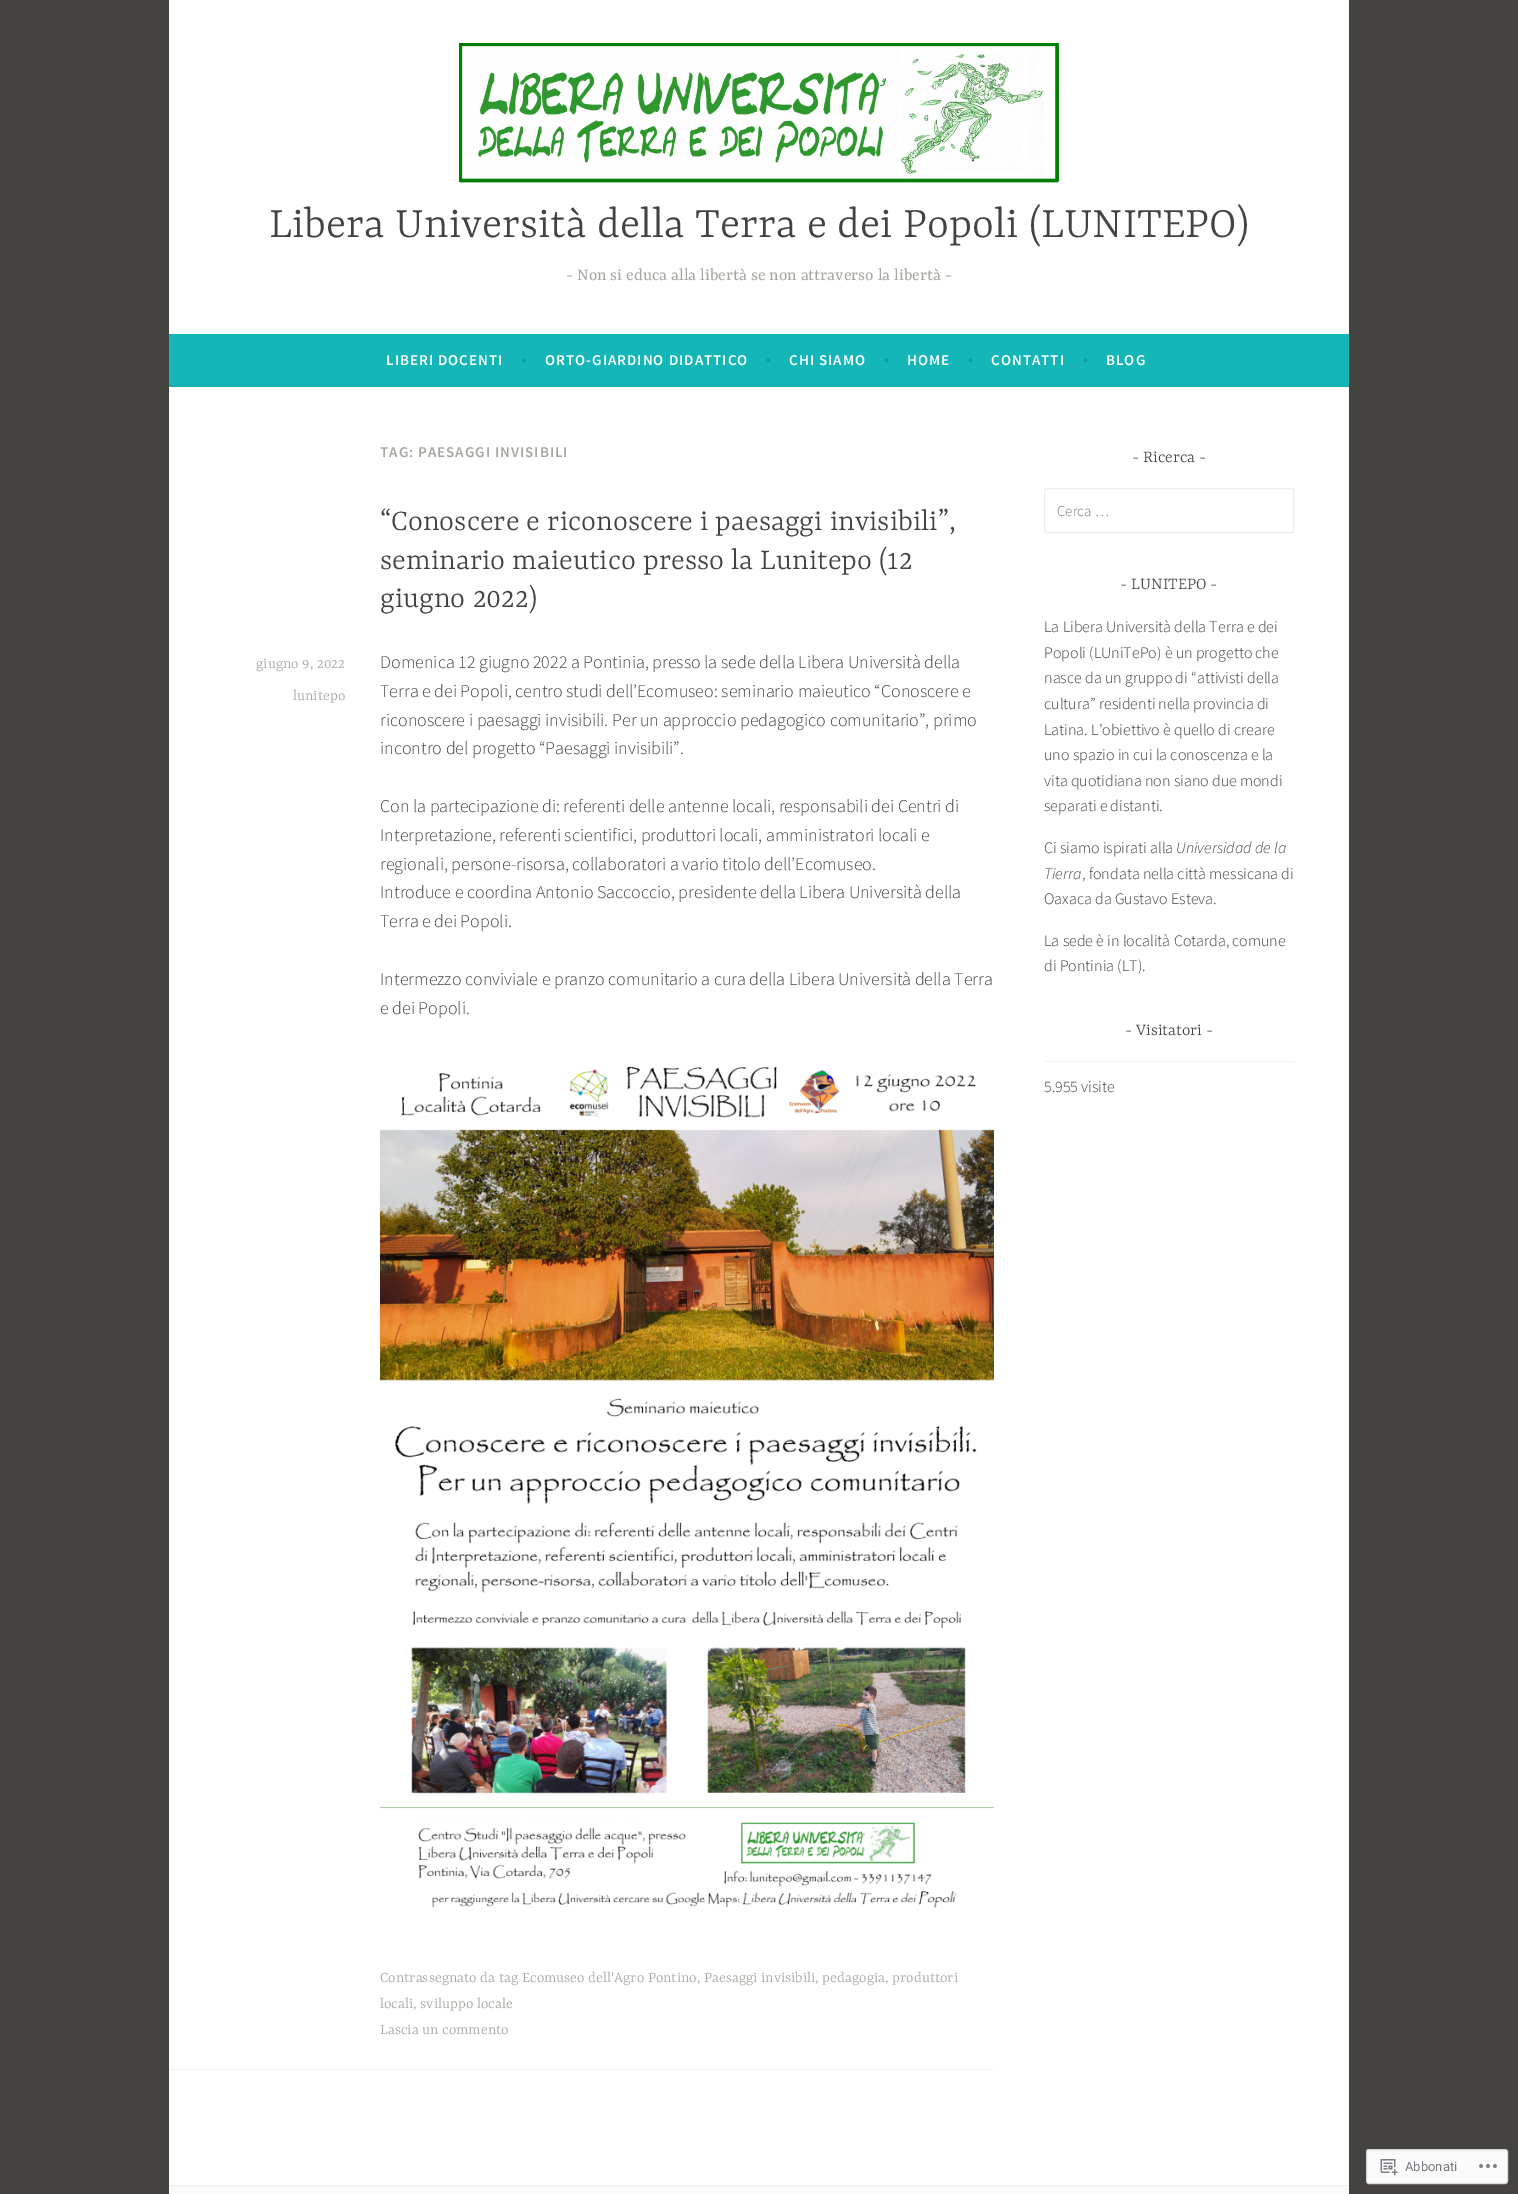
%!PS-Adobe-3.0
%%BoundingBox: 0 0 1518 2194
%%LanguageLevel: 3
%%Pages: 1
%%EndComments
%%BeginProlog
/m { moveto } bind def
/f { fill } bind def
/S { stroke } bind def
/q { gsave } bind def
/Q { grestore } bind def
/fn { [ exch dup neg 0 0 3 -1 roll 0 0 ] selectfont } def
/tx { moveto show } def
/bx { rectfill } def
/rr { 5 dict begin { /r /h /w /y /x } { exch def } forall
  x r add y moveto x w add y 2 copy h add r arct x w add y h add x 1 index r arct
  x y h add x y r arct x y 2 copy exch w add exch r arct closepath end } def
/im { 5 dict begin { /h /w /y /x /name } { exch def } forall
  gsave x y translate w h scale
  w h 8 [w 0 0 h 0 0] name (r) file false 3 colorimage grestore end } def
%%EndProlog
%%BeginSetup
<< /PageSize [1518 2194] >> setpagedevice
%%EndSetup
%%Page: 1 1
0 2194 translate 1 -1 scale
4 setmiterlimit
0.267 0.263 0.251 setrgbcolor
0 0 1518 2194 bx
1 setgray
169 0 1180 334 bx
(image0.raw) 459 43 600 140 im
/Yrsa-Light 47 fn
0.267 0.263 0.251 setrgbcolor
(Libera Università della Terra e dei Popoli \(LUNITEPO\)) 269 237 tx
/Yrsa-Regular 18 fn
0.659 0.651 0.631 setrgbcolor
(- Non si educa alla libertà se non attraverso la libertà -) 566 280 tx
0.082 0.714 0.722 setrgbcolor
169 334 1180 51 bx
0.078 0.694 0.698 setrgbcolor
169 385 1180 2 bx
/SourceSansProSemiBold-SemiBold 15 fn
1 setgray
386 365 m 1 0 (LIBERI DOCENTI) ashow
/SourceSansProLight-Light 18 fn
0.071 0.608 0.612 setrgbcolor
(•) 522 365 tx
/SourceSansProSemiBold-SemiBold 15 fn
1 setgray
545 365 m 1 0 (ORTO-GIARDINO DIDATTICO) ashow
/SourceSansProLight-Light 18 fn
0.071 0.608 0.612 setrgbcolor
(•) 766 365 tx
/SourceSansProSemiBold-SemiBold 15 fn
1 setgray
789 365 m 1 0 (CHI SIAMO) ashow
/SourceSansProLight-Light 18 fn
0.071 0.608 0.612 setrgbcolor
(•) 884 365 tx
/SourceSansProSemiBold-SemiBold 15 fn
1 setgray
907 365 m 1 0 (HOME) ashow
/SourceSansProLight-Light 18 fn
0.071 0.608 0.612 setrgbcolor
(•) 968 365 tx
/SourceSansProSemiBold-SemiBold 15 fn
1 setgray
991 365 m 1 0 (CONTATTI) ashow
/SourceSansProLight-Light 18 fn
0.071 0.608 0.612 setrgbcolor
(•) 1083 365 tx
/SourceSansProSemiBold-SemiBold 15 fn
1 setgray
1106 365 m 1 0 (BLOG) ashow
169 387 1180 1798 bx
0.659 0.651 0.631 setrgbcolor
380 457 m 1 0 (TAG: PAESAGGI INVISIBILI) ashow
/Yrsa-Light 32 fn
0.267 0.263 0.251 setrgbcolor
(“Conoscere e riconoscere i paesaggi invisibili”,) 380 530 tx
(seminario maieutico presso la Lunitepo \(12) 380 569 tx
(giugno 2022\)) 380 607 tx
/Yrsa-Light 16 fn
0.659 0.651 0.631 setrgbcolor
(giugno 9, 2022) 256 668 tx
(lunitepo) 293 700 tx
/SourceSansProLight-Light 18 fn
0.267 0.263 0.251 setrgbcolor
(Domenica 12 giugno 2022 a Pontinia, presso la sede della Libera Università della) 380 668 tx
(Terra e dei Popoli, centro studi dell’Ecomuseo: seminario maieutico “Conoscere e) 380 697 tx
(riconoscere i paesaggi invisibili. Per un approccio pedagogico comunitario”, primo) 380 726 tx
(incontro del progetto “Paesaggi invisibili”.) 380 754 tx
(Con la partecipazione di: referenti delle antenne locali, responsabili dei Centri di) 380 812 tx
(Interpretazione, referenti scientifici, produttori locali, amministratori locali e) 380 841 tx
(regionali, persone-risorsa, collaboratori a vario titolo dell’Ecomuseo.) 380 870 tx
(Introduce e coordina Antonio Saccoccio, presidente della Libera Università della) 380 898 tx
(Terra e dei Popoli.) 380 927 tx
(Intermezzo conviviale e pranzo comunitario a cura della Libera Università della Terra) 380 985 tx
(e dei Popoli.) 380 1014 tx
(image1.raw) 380 1066 614 842 im
/Yrsa-Light 16 fn
0.659 0.651 0.631 setrgbcolor
(Contrassegnato da tag Ecomuseo dell'Agro Pontino, Paesaggi invisibili, pedagogia, produttori) 380 1982 tx
(locali, sviluppo locale) 380 2008 tx
(Lascia un commento) 380 2034 tx
0.949 setgray
169 2069 825 1 bx
/Yrsa-Light 18 fn
0.267 0.263 0.251 setrgbcolor
(- Ricerca -) 1132 462 tx
0.933 setgray
1044.5 488.5 249 44 1.5 rr S
/SourceSansProLight-Light 15 fn
0.459 setgray
(Cerca …) 1057 516 tx
/Yrsa-Light 18 fn
0.267 0.263 0.251 setrgbcolor
(- LUNITEPO -) 1120 589 tx
/SourceSansProLight-Light 16 fn
(La Libera Università della Terra e dei) 1044 632 tx
(Popoli \(LUniTePo\) è un progetto che) 1044 658 tx
(nasce da un gruppo di “attivisti della) 1044 683 tx
(cultura” residenti nella provincia di) 1044 709 tx
(Latina. L’obiettivo è quello di creare) 1044 735 tx
(uno spazio in cui la conoscenza e la) 1044 760 tx
(vita quotidiana non siano due mondi) 1044 786 tx
(separati e distanti.) 1044 811 tx
(Ci siamo ispirati alla) 1044 853 tx
/SourceSansProLight-LightItalic 16 fn
(Universidad de la) 1176 853 tx
(Tierra) 1044 879 tx
/SourceSansProLight-Light 16 fn
(, fondata nella città messicana di) 1082 879 tx
(Oaxaca da Gustavo Esteva.) 1044 904 tx
(La sede è in località Cotarda, comune) 1044 946 tx
(di Pontinia \(LT\).) 1044 971 tx
/Yrsa-Light 18 fn
(- Visitatori -) 1125 1035 tx
0.949 setgray
1044 1061 250 1 bx
/SourceSansProLight-Light 16 fn
0.267 0.263 0.251 setrgbcolor
(5.955 visite) 1044 1092 tx
0.98 setgray
169 2186 1180 8 bx
0.933 setgray
169 2185 1180 1 bx
0.984 setgray
1366.5 2149.5 141 34 2.5 rr q f Q
0.851 0.851 0.859 setrgbcolor
S
(image2.raw) 1380 2159 18 17 im
/Roboto-Regular 13 fn
0.467 0.482 0.506 setrgbcolor
(Abbonati) 1405 2171 tx
(image3.raw) 1479 2164 18 4 im
showpage
%%EOF
